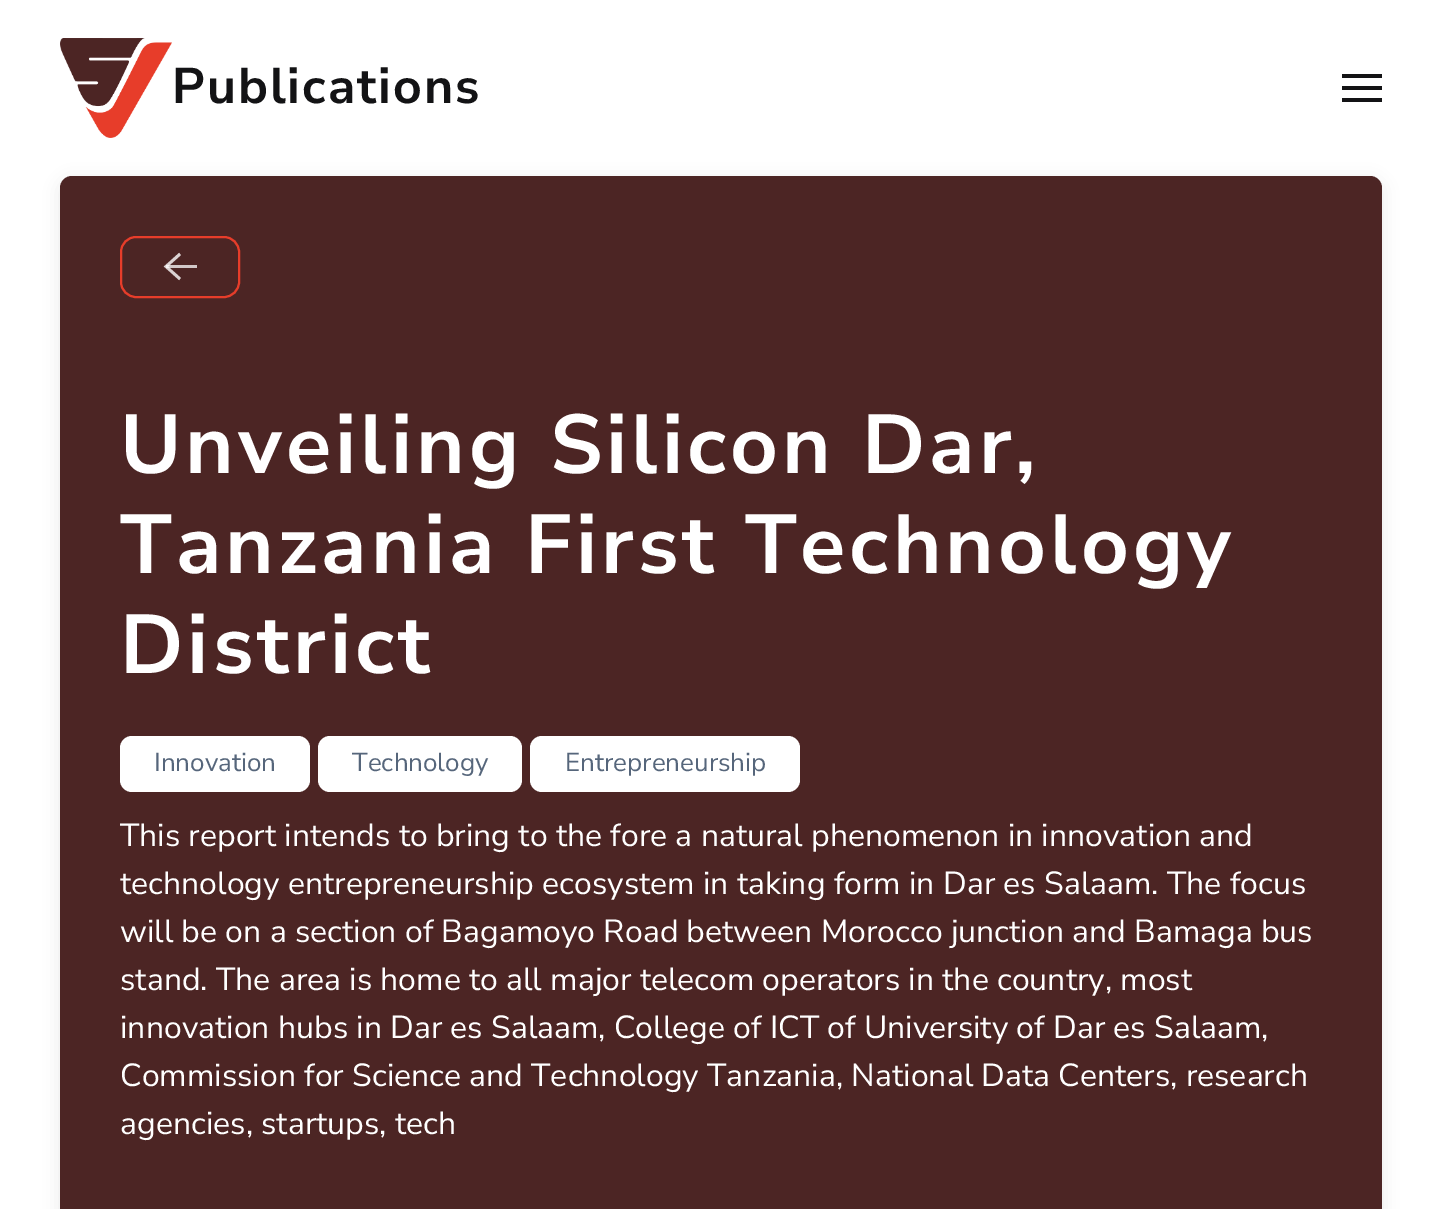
%!PS-Adobe-3.0
%%BoundingBox: 0 0 1442 1209
%%LanguageLevel: 3
%%Pages: 1
%%EndComments
%%BeginProlog
/m { moveto } bind def
/l { lineto } bind def
/f { fill } bind def
/S { stroke } bind def
/w { setlinewidth } bind def
/fn { [ exch dup neg 0 0 3 -1 roll 0 0 ] selectfont } def
/tx { moveto show } def
/bx { rectfill } def
/al { dup .setfillconstantalpha .setstrokeconstantalpha } def
/rr { 5 dict begin { /r /h /w /y /x } { exch def } forall
  x r add y moveto x w add y 2 copy h add r arct x w add y h add x 1 index r arct
  x y h add x y r arct x y 2 copy exch w add exch r arct closepath end } def
/sh { 12 dict begin { /a /b /q /h /w /y /x } { exch def } forall gsave /was 0 def
  9 -2 -9 { dup b mul 4 div /e exch def 1 sub .425 mul 2.718 exch exp 1 add a .99 .min exch div /now exch def
    1 1 now sub 1 was sub div sub al /was now def
    w h .min e 2 mul add 0 gt { x e sub y e sub w e 2 mul add h e 2 mul add
      q e add b .6 mul add w h .min 2 div e add .min 0 .max rr fill } if } for grestore end } def
/im { 5 dict begin { /h /w /y /x /name } { exch def } forall
  gsave x y translate w h scale
  w h 8 [w 0 0 h 0 0] name (r) file false 3 colorimage grestore end } def
%%EndProlog
%%BeginSetup
<< /PageSize [1442 1209] /PageUsesTransparency true >> setpagedevice
%%EndSetup
%%Page: 1 1
0 .pushpdf14devicefilter
0 1209 translate 1 -1 scale
4 setmiterlimit
1 setgray
0 0 1442 1209 bx
(image0.raw) 60 38 112 100 im
/NunitoSans-Bold 50 fn
0.075 0.075 0.082 setrgbcolor
172 103 m 2 0 (Publications) ashow
1342 74 40 4 bx
1342 86 40 4 bx
1342 98 40 4 bx
0 setgray
60 180 1322 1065 12 8 0.08 sh
0.298 0.145 0.141 setrgbcolor
60 176 1322 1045 12 rr f
0.906 0.239 0.165 setrgbcolor
2 w
121 237 118 60 15 rr S
0.859 0.827 0.827 setrgbcolor
2.8 w
180 279 m 166 266.5 l 180 254 l S
0.75 al
1 setgray
166 265 31 3 bx
/NunitoSans-Bold 83.25 fn
1 al
120 473 m 4 0 (Unveiling Silicon Dar,) ashow
120 573 m 4 0 (Tanzania First Technology) ashow
120 673 m 4 0 (District) ashow
120 736 190 56 12 rr f
/NunitoSans-Regular 26 fn
0.337 0.4 0.482 setrgbcolor
(Innovation) 154 771 tx
1 setgray
318 736 204 56 12 rr f
0.337 0.4 0.482 setrgbcolor
(Technology) 352 771 tx
1 setgray
530 736 270 56 12 rr f
0.337 0.4 0.482 setrgbcolor
(Entrepreneurship) 565 771 tx
/NunitoSans-Regular 32 fn
1 setgray
(This report intends to bring to the fore a natural phenomenon in innovation and) 120 846 tx
(technology entrepreneurship ecosystem in taking form in Dar es Salaam. The focus) 120 894 tx
(will be on a section of Bagamoyo Road between Morocco junction and Bamaga bus) 120 942 tx
(stand. The area is home to all major telecom operators in the country, most) 120 990 tx
(innovation hubs in Dar es Salaam, College of ICT of University of Dar es Salaam,) 120 1038 tx
(Commission for Science and Technology Tanzania, National Data Centers, research) 120 1086 tx
(agencies, startups, tech) 120 1134 tx
.poppdf14devicefilter showpage
%%EOF
